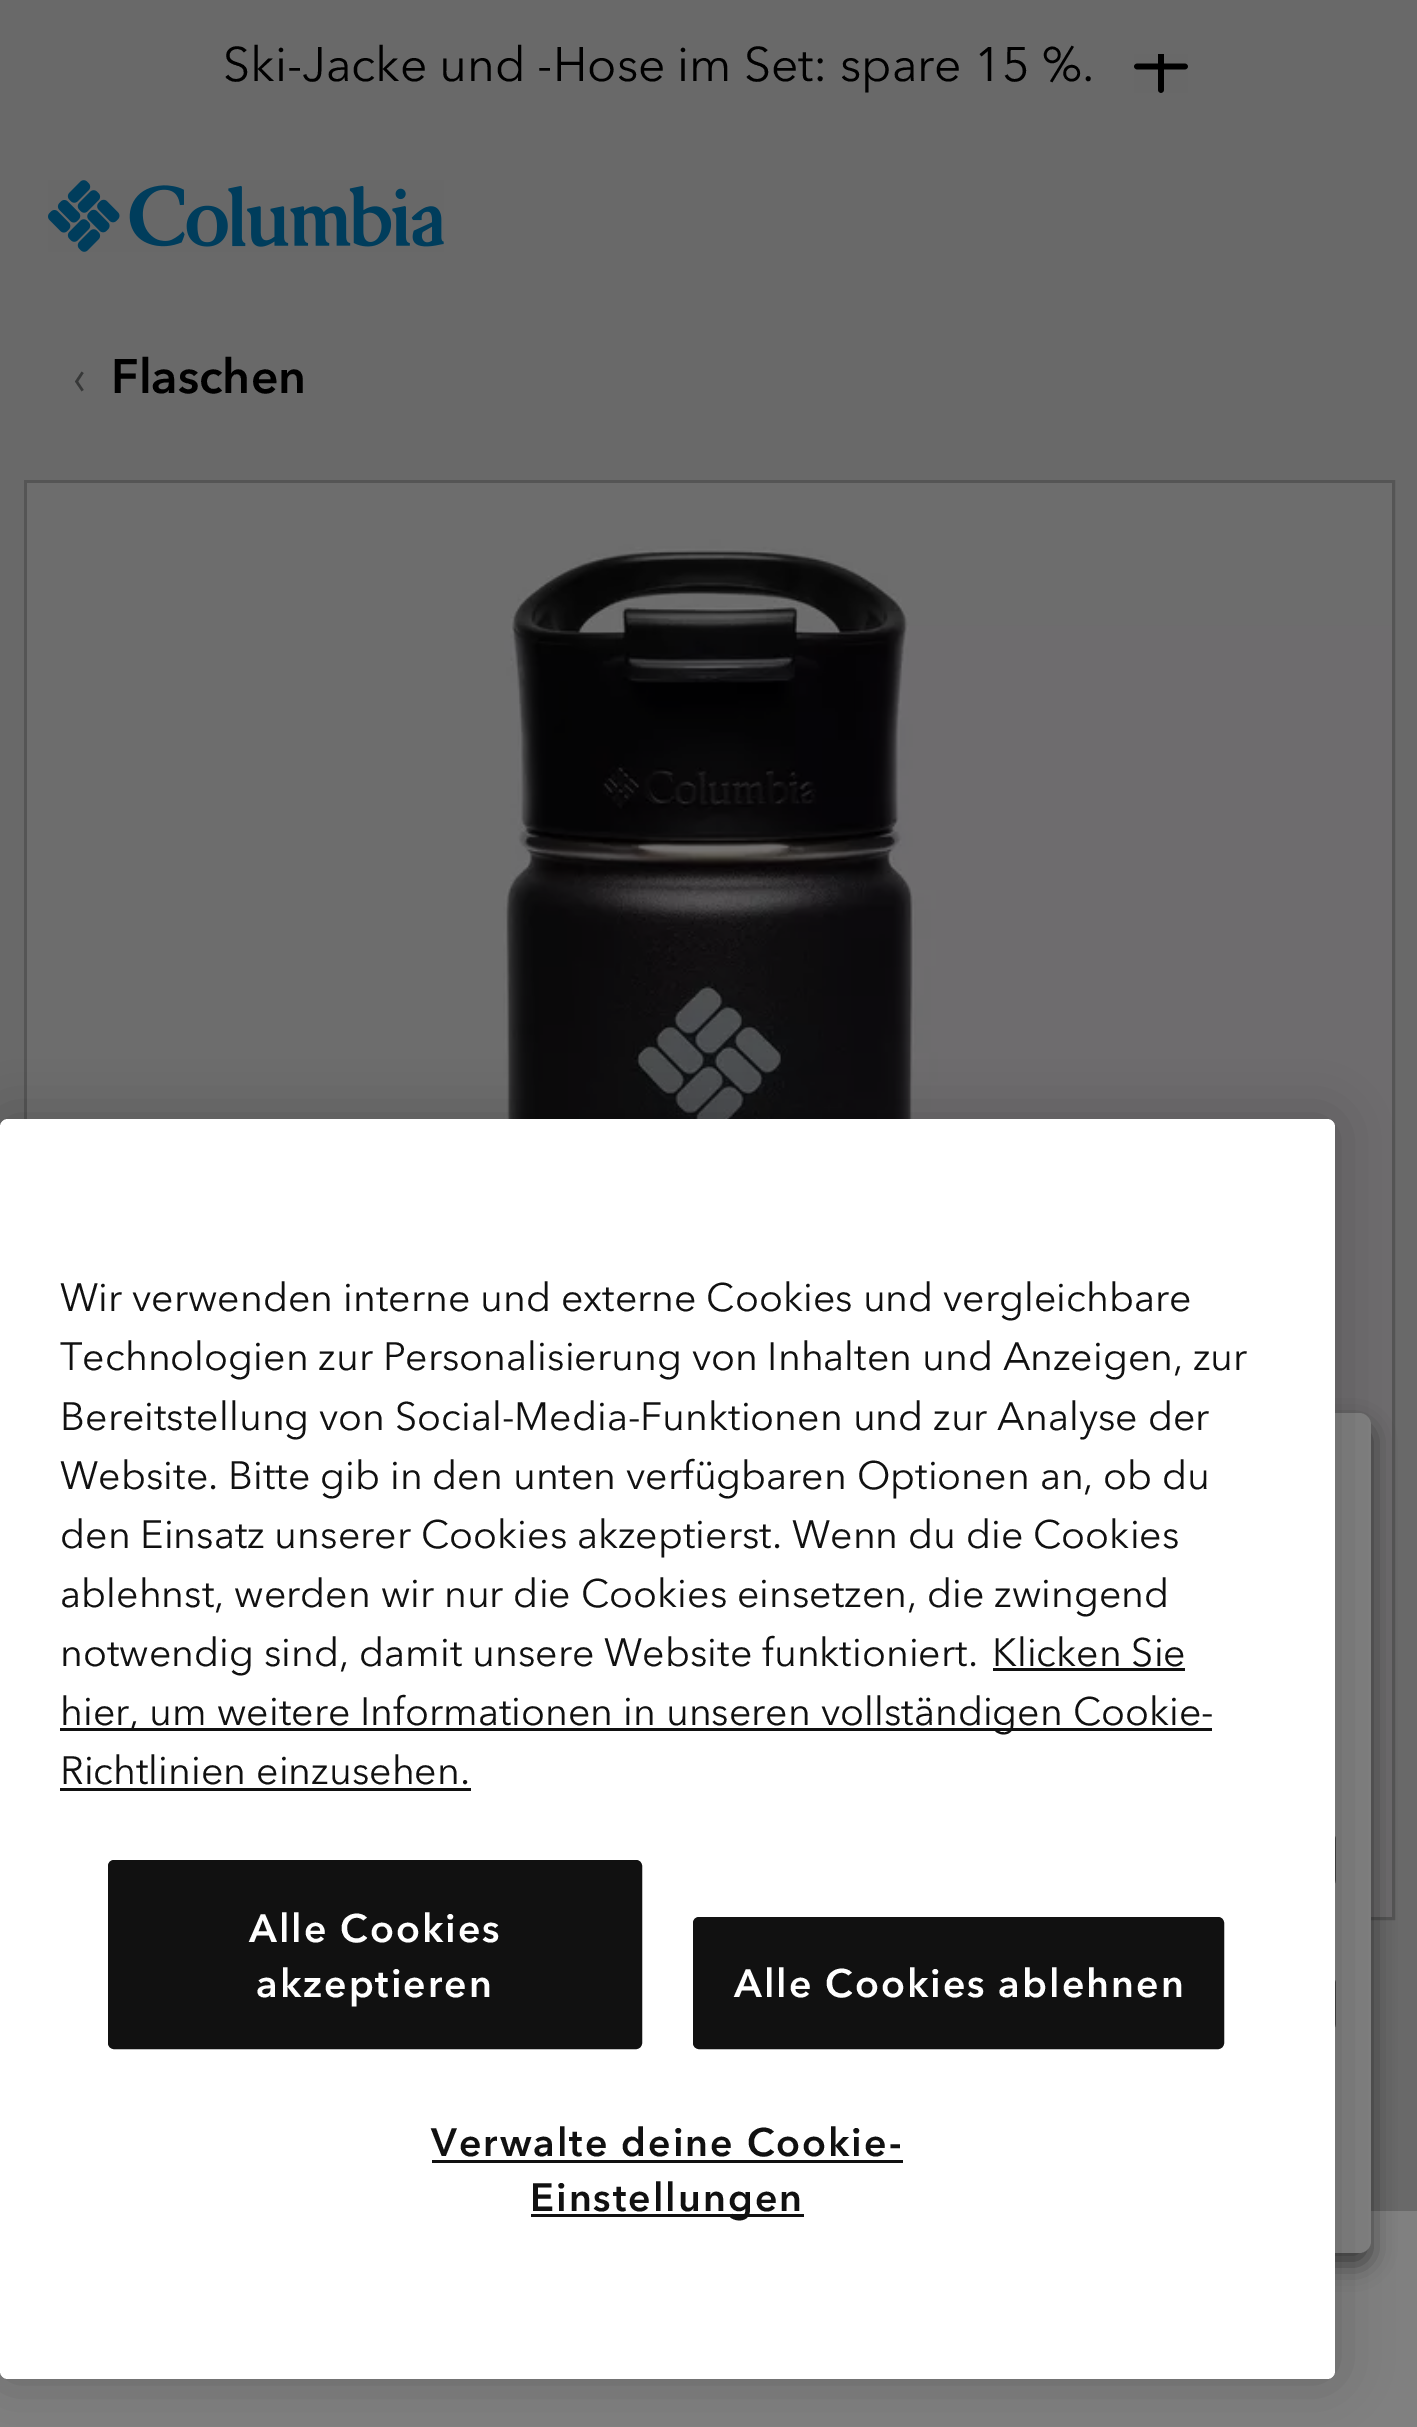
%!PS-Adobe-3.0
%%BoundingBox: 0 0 1417 2427
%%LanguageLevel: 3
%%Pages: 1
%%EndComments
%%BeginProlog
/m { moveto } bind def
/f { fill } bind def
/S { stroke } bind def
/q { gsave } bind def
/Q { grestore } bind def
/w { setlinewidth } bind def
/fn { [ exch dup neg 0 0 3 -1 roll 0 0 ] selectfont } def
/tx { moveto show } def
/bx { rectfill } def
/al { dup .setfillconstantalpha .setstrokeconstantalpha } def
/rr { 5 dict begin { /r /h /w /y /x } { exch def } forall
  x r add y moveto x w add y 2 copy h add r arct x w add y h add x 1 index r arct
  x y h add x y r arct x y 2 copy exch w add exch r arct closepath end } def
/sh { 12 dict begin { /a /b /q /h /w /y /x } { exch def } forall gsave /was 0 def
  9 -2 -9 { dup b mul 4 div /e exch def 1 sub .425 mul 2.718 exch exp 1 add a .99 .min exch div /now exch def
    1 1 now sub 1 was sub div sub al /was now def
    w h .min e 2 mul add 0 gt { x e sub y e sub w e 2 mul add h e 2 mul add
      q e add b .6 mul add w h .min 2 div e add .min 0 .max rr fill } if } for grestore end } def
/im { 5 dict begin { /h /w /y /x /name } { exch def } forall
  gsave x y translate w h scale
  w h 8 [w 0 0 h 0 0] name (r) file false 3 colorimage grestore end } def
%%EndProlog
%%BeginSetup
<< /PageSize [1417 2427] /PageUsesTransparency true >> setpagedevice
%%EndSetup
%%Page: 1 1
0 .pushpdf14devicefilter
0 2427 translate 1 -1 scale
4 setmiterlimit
0.412 setgray
0 0 1417 2427 bx
/AvenirNext-Regular 48 fn
0 setgray
(Ski-Jacke und -Hose im Set: spare 15 %.) 223 81 tx
(image0.raw) 1134 54 54 39 im
(image1.raw) 48 180 396 72 im
0.502 setgray
0 2211 1417 216 bx
0.216 0.22 0.22 setrgbcolor
(‹) 72 393 tx
/AvenirNext-SemiBold 48 fn
0 setgray
(Flaschen) 111 393 tx
0.333 setgray
3 w
25.5 481.5 1368 1437 rectstroke
(image2.raw) 27 483 1365 1434 im
0 setgray
96 1425 1275 840 12 12 0.5 sh
0.502 setgray
96 1413 1275 840 12 rr f
(image3.raw) 1335 1836 1 48 im
(image3.raw) 1335 1980 1 48 im
0 setgray
0 1119 1335 1260 8 27 0.2 sh
1 setgray
0 1119 1335 1260 8 rr f
/AvenirNext-Regular 39.35 fn
0.067 setgray
(Wir verwenden interne und externe Cookies und vergleichbare) 60 1311 tx
(Technologien zur Personalisierung von Inhalten und Anzeigen, zur) 60 1370 tx
(Bereitstellung von Social-Media-Funktionen und zur Analyse der) 60 1430 tx
(Website. Bitte gib in den unten verfügbaren Optionen an, ob du) 60 1489 tx
(den Einsatz unserer Cookies akzeptierst. Wenn du die Cookies) 60 1548 tx
(ablehnst, werden wir nur die Cookies einsetzen, die zwingend) 60 1607 tx
(notwendig sind, damit unsere Website funktioniert.) 60 1666 tx
(Klicken Sie) 992 1666 tx
993 1668 192 3 bx
60 1728 1152 3 bx
(hier, um weitere Informationen in unseren vollständigen Cookie-) 60 1725 tx
(Richtlinien einzusehen.) 60 1784 tx
60 1788 411 3 bx
109.5 1861.5 531 186 4.5 rr q f Q
S
/AvenirNext-SemiBold 39.35 fn
1 setgray
249 1942 m 2 0 (Alle Cookies) ashow
256 1997 m 2 0 (akzeptieren) ashow
0.067 setgray
694.5 1918.5 528 129 4.5 rr q f Q
S
1 setgray
734 1997 m 2 0 (Alle Cookies ablehnen) ashow
0.067 setgray
431 2156 m 2 0 (Verwalte deine Cookie-) ashow
432 2160 471 3 bx
531 2214 273 3 bx
530 2211 m 2 0 (Einstellungen) ashow
.poppdf14devicefilter showpage
%%EOF
